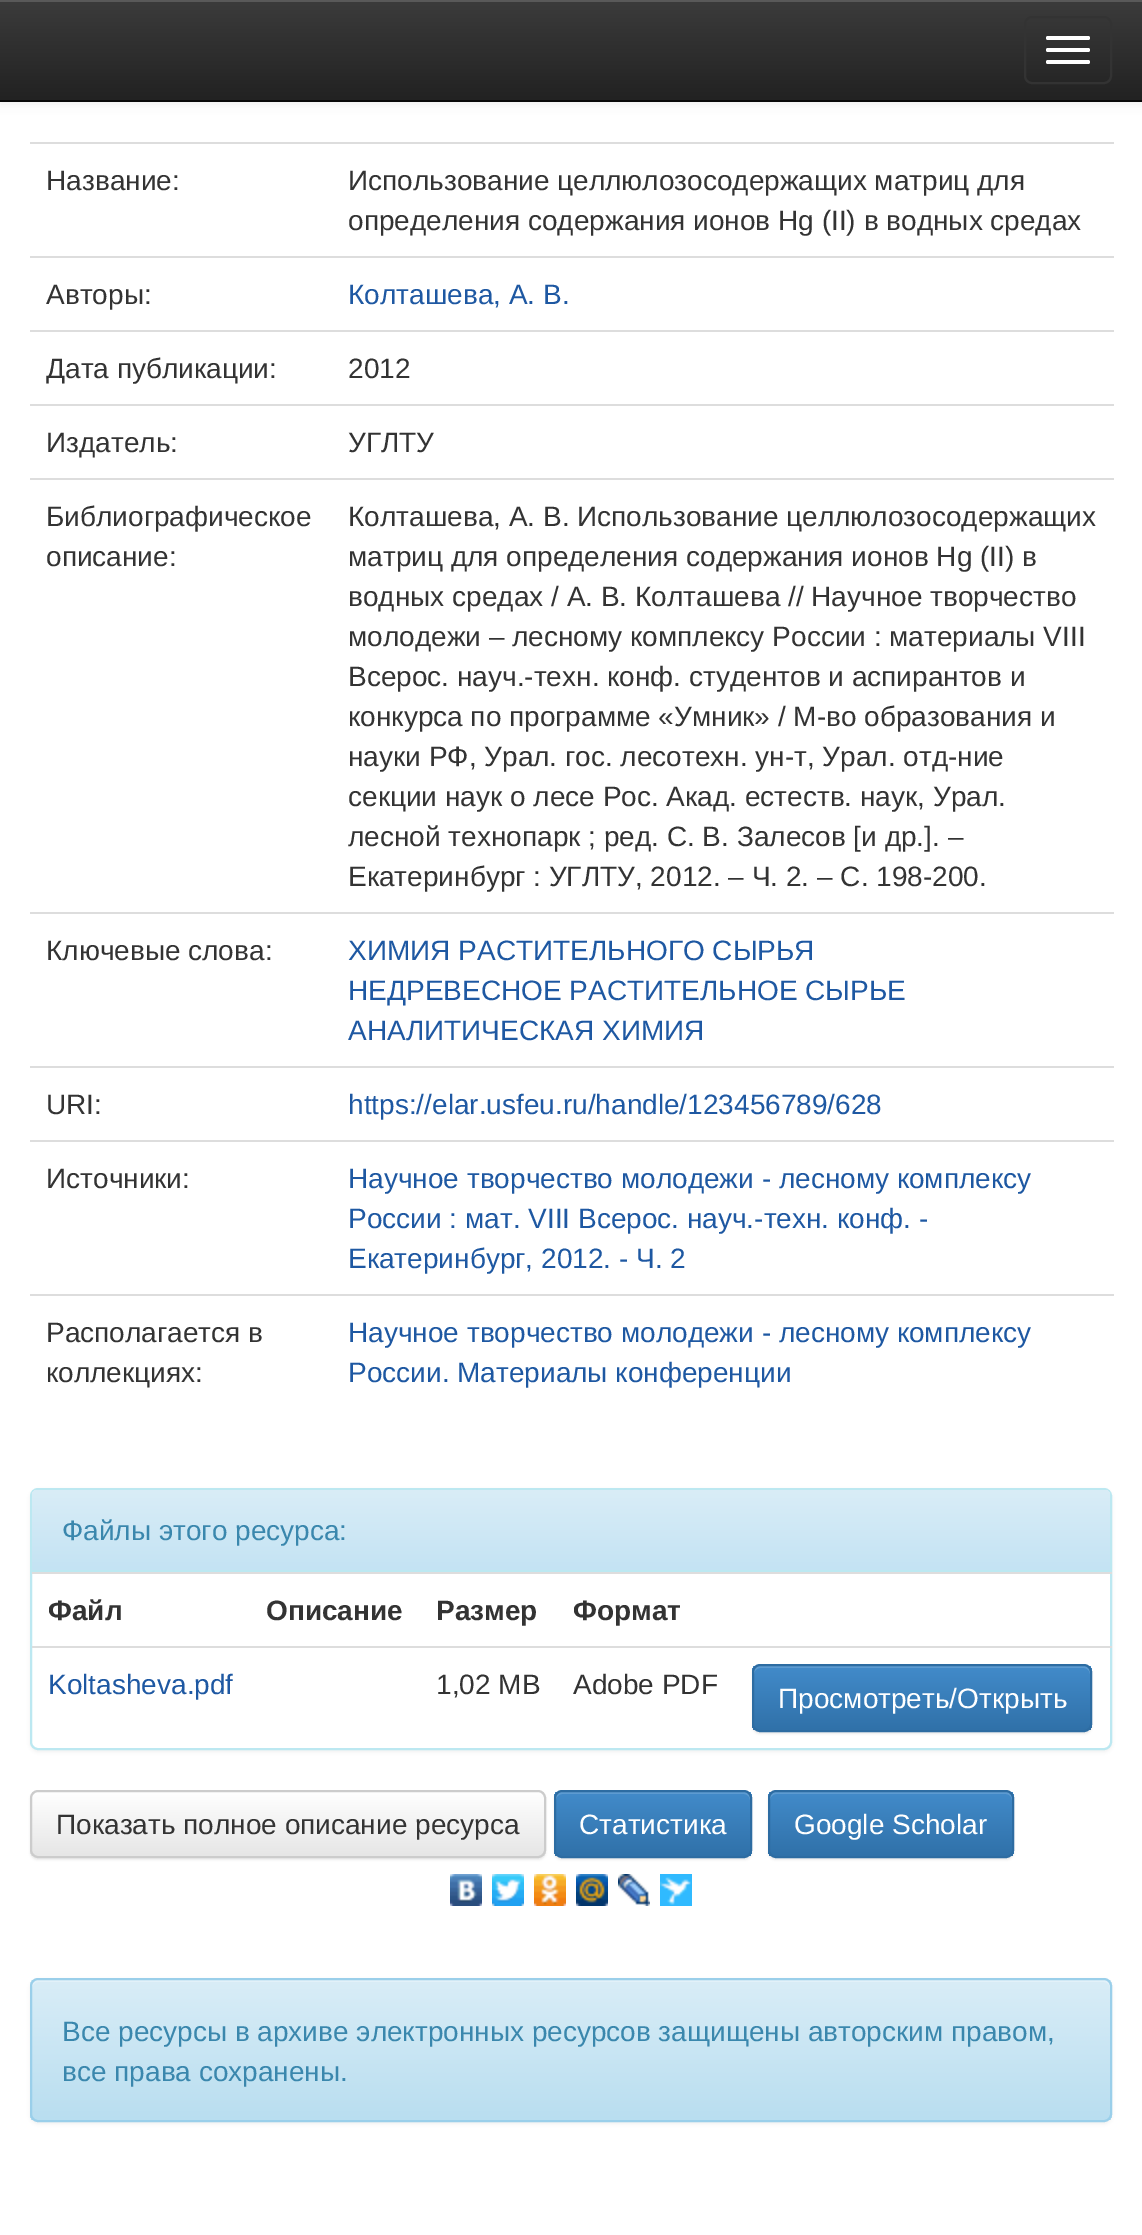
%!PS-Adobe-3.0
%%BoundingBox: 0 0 1142 2235
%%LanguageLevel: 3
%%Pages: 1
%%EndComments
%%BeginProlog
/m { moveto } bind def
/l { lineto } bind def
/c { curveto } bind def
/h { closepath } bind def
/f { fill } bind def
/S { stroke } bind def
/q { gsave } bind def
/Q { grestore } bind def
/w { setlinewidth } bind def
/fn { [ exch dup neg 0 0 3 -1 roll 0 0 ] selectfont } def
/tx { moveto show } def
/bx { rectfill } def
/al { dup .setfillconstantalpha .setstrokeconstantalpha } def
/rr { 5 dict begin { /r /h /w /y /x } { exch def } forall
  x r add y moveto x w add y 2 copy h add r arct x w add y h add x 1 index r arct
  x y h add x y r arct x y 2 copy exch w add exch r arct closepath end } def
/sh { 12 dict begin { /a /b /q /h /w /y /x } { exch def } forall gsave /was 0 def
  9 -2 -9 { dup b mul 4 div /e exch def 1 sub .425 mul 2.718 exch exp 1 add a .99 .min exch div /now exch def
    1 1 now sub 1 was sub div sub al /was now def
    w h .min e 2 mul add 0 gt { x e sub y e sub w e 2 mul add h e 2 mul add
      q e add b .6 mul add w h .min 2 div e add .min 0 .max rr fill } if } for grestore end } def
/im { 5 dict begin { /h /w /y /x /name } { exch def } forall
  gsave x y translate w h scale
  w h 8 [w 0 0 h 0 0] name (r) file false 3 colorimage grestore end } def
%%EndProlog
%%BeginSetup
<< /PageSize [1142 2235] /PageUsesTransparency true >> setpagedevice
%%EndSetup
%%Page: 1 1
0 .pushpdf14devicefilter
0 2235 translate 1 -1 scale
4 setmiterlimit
1 setgray
0 0 1142 2235 bx
0 setgray
0 2 1142 102 0 5 0.07 sh
q 0 2 m 1142 2 l 1142 100 l 0 100 l h clip newpath
<< /ShadingType 2 /ColorSpace /DeviceRGB /Coords [571 0 571 100] /Extend [true true] /Function << /FunctionType 2 /Domain [0 1] /C0 [0.235 0.235 0.235] /C1 [0.133 0.133 0.133] /N 1 >> >> shfill Q
0.349 setgray
0 0 1142 2 bx
0.031 setgray
0 100 1142 2 bx
0.2 setgray
2 w
1025 17 86 66 7 rr S
1 setgray
1046 36 44 4 2 rr f
1046 48 44 4 2 rr f
1046 60 44 4 2 rr f
/LiberationSans-Regular 28 fn
0.2 setgray
(Название:) 46 190 tx
0.867 setgray
30 142 1084 2 bx
0.2 setgray
(Использование целлюлозосодержащих матриц для) 348 190 tx
(определения содержания ионов Hg \(II\) в водных средах) 348 230 tx
(Авторы:) 46 304 tx
0.867 setgray
30 256 1084 2 bx
0.118 0.345 0.635 setrgbcolor
(Колташева, А. В.) 348 304 tx
0.2 setgray
(Дата публикации:) 46 378 tx
0.867 setgray
30 330 1084 2 bx
0.2 setgray
(2012) 348 378 tx
(Издатель:) 46 452 tx
0.867 setgray
30 404 1084 2 bx
0.2 setgray
(УГЛТУ) 348 452 tx
(Библиографическое) 46 526 tx
(описание:) 46 566 tx
0.867 setgray
30 478 1084 2 bx
0.2 setgray
(Колташева, А. В. Использование целлюлозосодержащих) 348 526 tx
(матриц для определения содержания ионов Hg \(II\) в) 348 566 tx
(водных средах / А. В. Колташева // Научное творчество) 348 606 tx
(молодежи – лесному комплексу России : материалы VIII) 348 646 tx
(Всерос. науч.-техн. конф. студентов и аспирантов и) 348 686 tx
(конкурса по программе «Умник» / М-во образования и) 348 726 tx
(науки РФ, Урал. гос. лесотехн. ун-т, Урал. отд-ние) 348 766 tx
(секции наук о лесе Рос. Акад. естеств. наук, Урал.) 348 806 tx
(лесной технопарк ; ред. С. В. Залесов [и др.]. –) 348 846 tx
(Екатеринбург : УГЛТУ, 2012. – Ч. 2. – С. 198-200.) 348 886 tx
(Ключевые слова:) 46 960 tx
0.867 setgray
30 912 1084 2 bx
0.118 0.345 0.635 setrgbcolor
(ХИМИЯ РАСТИТЕЛЬНОГО СЫРЬЯ) 348 960 tx
(НЕДРЕВЕСНОЕ РАСТИТЕЛЬНОЕ СЫРЬЕ) 348 1000 tx
(АНАЛИТИЧЕСКАЯ ХИМИЯ) 348 1040 tx
0.2 setgray
(URI:) 46 1114 tx
0.867 setgray
30 1066 1084 2 bx
0.118 0.345 0.635 setrgbcolor
(https://elar.usfeu.ru/handle/123456789/628) 348 1114 tx
0.2 setgray
(Источники:) 46 1188 tx
0.867 setgray
30 1140 1084 2 bx
0.118 0.345 0.635 setrgbcolor
(Научное творчество молодежи - лесному комплексу) 348 1188 tx
(России : мат. VIII Всерос. науч.-техн. конф. -) 348 1228 tx
(Екатеринбург, 2012. - Ч. 2) 348 1268 tx
0.2 setgray
(Располагается в) 46 1342 tx
(коллекциях:) 46 1382 tx
0.867 setgray
30 1294 1084 2 bx
0.118 0.345 0.635 setrgbcolor
(Научное творчество молодежи - лесному комплексу) 348 1342 tx
(России. Материалы конференции) 348 1382 tx
0 setgray
30 1490 1082 262 8 2 0.05 sh
1 setgray
31 1489 1080 260 7 rr q f Q
0.737 0.91 0.945 setrgbcolor
S
q 38 1490 m 1104 1490 l 1107.5 1490 1110 1492.5 1110 1496 c 1110 1570 l 32 1570 l 32 1496 l 32 1492.5 34.5 1490 38 1490 c h clip newpath
<< /ShadingType 2 /ColorSpace /DeviceRGB /Coords [571 1490 571 1570] /Extend [true true] /Function << /FunctionType 2 /Domain [0 1] /C0 [0.851 0.929 0.969] /C1 [0.769 0.89 0.953] /N 1 >> >> shfill Q
32 1570 1078 2 bx
0.227 0.529 0.678 setrgbcolor
(Файлы этого ресурса:) 62 1540 tx
0.867 setgray
32 1572 1080 2 bx
/LiberationSans-Bold 28 fn
0.2 setgray
(Файл) 48 1620 tx
(Описание) 266 1620 tx
(Размер) 436 1620 tx
(Формат) 573 1620 tx
/LiberationSans-Regular 28 fn
0.118 0.345 0.635 setrgbcolor
(Koltasheva.pdf) 48 1694 tx
0.2 setgray
(1,02 MB) 436 1694 tx
(Adobe PDF) 573 1694 tx
0.867 setgray
32 1646 1080 2 bx
0 setgray
752 1666 340 68 8 1 0.07 sh
q
752 1664 340 68 8 rr clip newpath
q 752 1666 m 1092 1666 l 1092 1730 l 752 1730 l h clip newpath
<< /ShadingType 2 /ColorSpace /DeviceRGB /Coords [922 1666 922 1730] /Extend [true true] /Function << /FunctionType 2 /Domain [0 1] /C0 [0.259 0.545 0.792] /C1 [0.188 0.443 0.663] /N 1 >> >> shfill Q
Q
0.15 al
1 setgray
760 1668 m 1084 1668 l 1087 1668 1090 1671 1090 1674 c 1090 1672 l 1090 1669 1087 1666 1084 1666 c 760 1666 l 757 1666 754 1669 754 1672 c 754 1674 l 754 1671 757 1668 760 1668 c h f
1 al
0.176 0.424 0.635 setrgbcolor
753 1665 338 66 7 rr S
1 setgray
(Просмотреть/Открыть) 778 1708 tx
0 setgray
30 1792 516 68 8 1 0.07 sh
q
30 1790 516 68 8 rr clip newpath
q 30 1792 m 546 1792 l 546 1856 l 30 1856 l h clip newpath
<< /ShadingType 2 /ColorSpace /DeviceRGB /Coords [288 1792 288 1856] /Extend [true true] /Function << /FunctionType 2 /Domain [0 1] /C0 [1 1 1] /C1 [0.902 0.902 0.902] /N 1 >> >> shfill Q
Q
0.8 setgray
31 1791 514 66 7 rr S
0.2 setgray
(Показать полное описание ресурса) 56 1834 tx
0 setgray
554 1792 198 68 8 1 0.07 sh
q
554 1790 198 68 8 rr clip newpath
q 554 1792 m 752 1792 l 752 1856 l 554 1856 l h clip newpath
<< /ShadingType 2 /ColorSpace /DeviceRGB /Coords [653 1792 653 1856] /Extend [true true] /Function << /FunctionType 2 /Domain [0 1] /C0 [0.259 0.545 0.792] /C1 [0.188 0.443 0.663] /N 1 >> >> shfill Q
Q
0.15 al
1 setgray
562 1794 m 744 1794 l 747 1794 750 1797 750 1800 c 750 1798 l 750 1795 747 1792 744 1792 c 562 1792 l 559 1792 556 1795 556 1798 c 556 1800 l 556 1797 559 1794 562 1794 c h f
1 al
0.176 0.424 0.635 setrgbcolor
555 1791 196 66 7 rr S
1 setgray
(Статистика) 579 1834 tx
0 setgray
768 1792 246 68 8 1 0.07 sh
q
768 1790 246 68 8 rr clip newpath
q 768 1792 m 1014 1792 l 1014 1856 l 768 1856 l h clip newpath
<< /ShadingType 2 /ColorSpace /DeviceRGB /Coords [891 1792 891 1856] /Extend [true true] /Function << /FunctionType 2 /Domain [0 1] /C0 [0.259 0.545 0.792] /C1 [0.188 0.443 0.663] /N 1 >> >> shfill Q
Q
0.15 al
1 setgray
776 1794 m 1006 1794 l 1009 1794 1012 1797 1012 1800 c 1012 1798 l 1012 1795 1009 1792 1006 1792 c 776 1792 l 773 1792 770 1795 770 1798 c 770 1800 l 770 1797 773 1794 776 1794 c h f
1 al
0.176 0.424 0.635 setrgbcolor
769 1791 244 66 7 rr S
1 setgray
(Google Scholar) 794 1834 tx
(image0.raw) 450 1874 32 32 im
(image1.raw) 492 1874 32 32 im
(image2.raw) 534 1874 32 32 im
(image3.raw) 576 1874 32 32 im
(image4.raw) 618 1874 32 32 im
(image5.raw) 660 1874 32 32 im
0 setgray
30 1980 1082 144 8 2 0.05 sh
q
30 1978 1082 144 8 rr clip newpath
q 30 1980 m 1112 1980 l 1112 2120 l 30 2120 l h clip newpath
<< /ShadingType 2 /ColorSpace /DeviceRGB /Coords [571 1980 571 2120] /Extend [true true] /Function << /FunctionType 2 /Domain [0 1] /C0 [0.851 0.929 0.969] /C1 [0.725 0.871 0.941] /N 1 >> >> shfill Q
Q
0.886 0.945 0.976 setrgbcolor
38 1982 m 1104 1982 l 1107 1982 1110 1985 1110 1988 c 1110 1986 l 1110 1983 1107 1980 1104 1980 c 38 1980 l 35 1980 32 1983 32 1986 c 32 1988 l 32 1985 35 1982 38 1982 c h f
0.604 0.812 0.918 setrgbcolor
31 1979 1080 142 7 rr S
0.227 0.529 0.678 setrgbcolor
(Все ресурсы в архиве электронных ресурсов защищены авторским правом,) 62 2041 tx
(все права сохранены.) 62 2081 tx
.poppdf14devicefilter showpage
%%EOF
